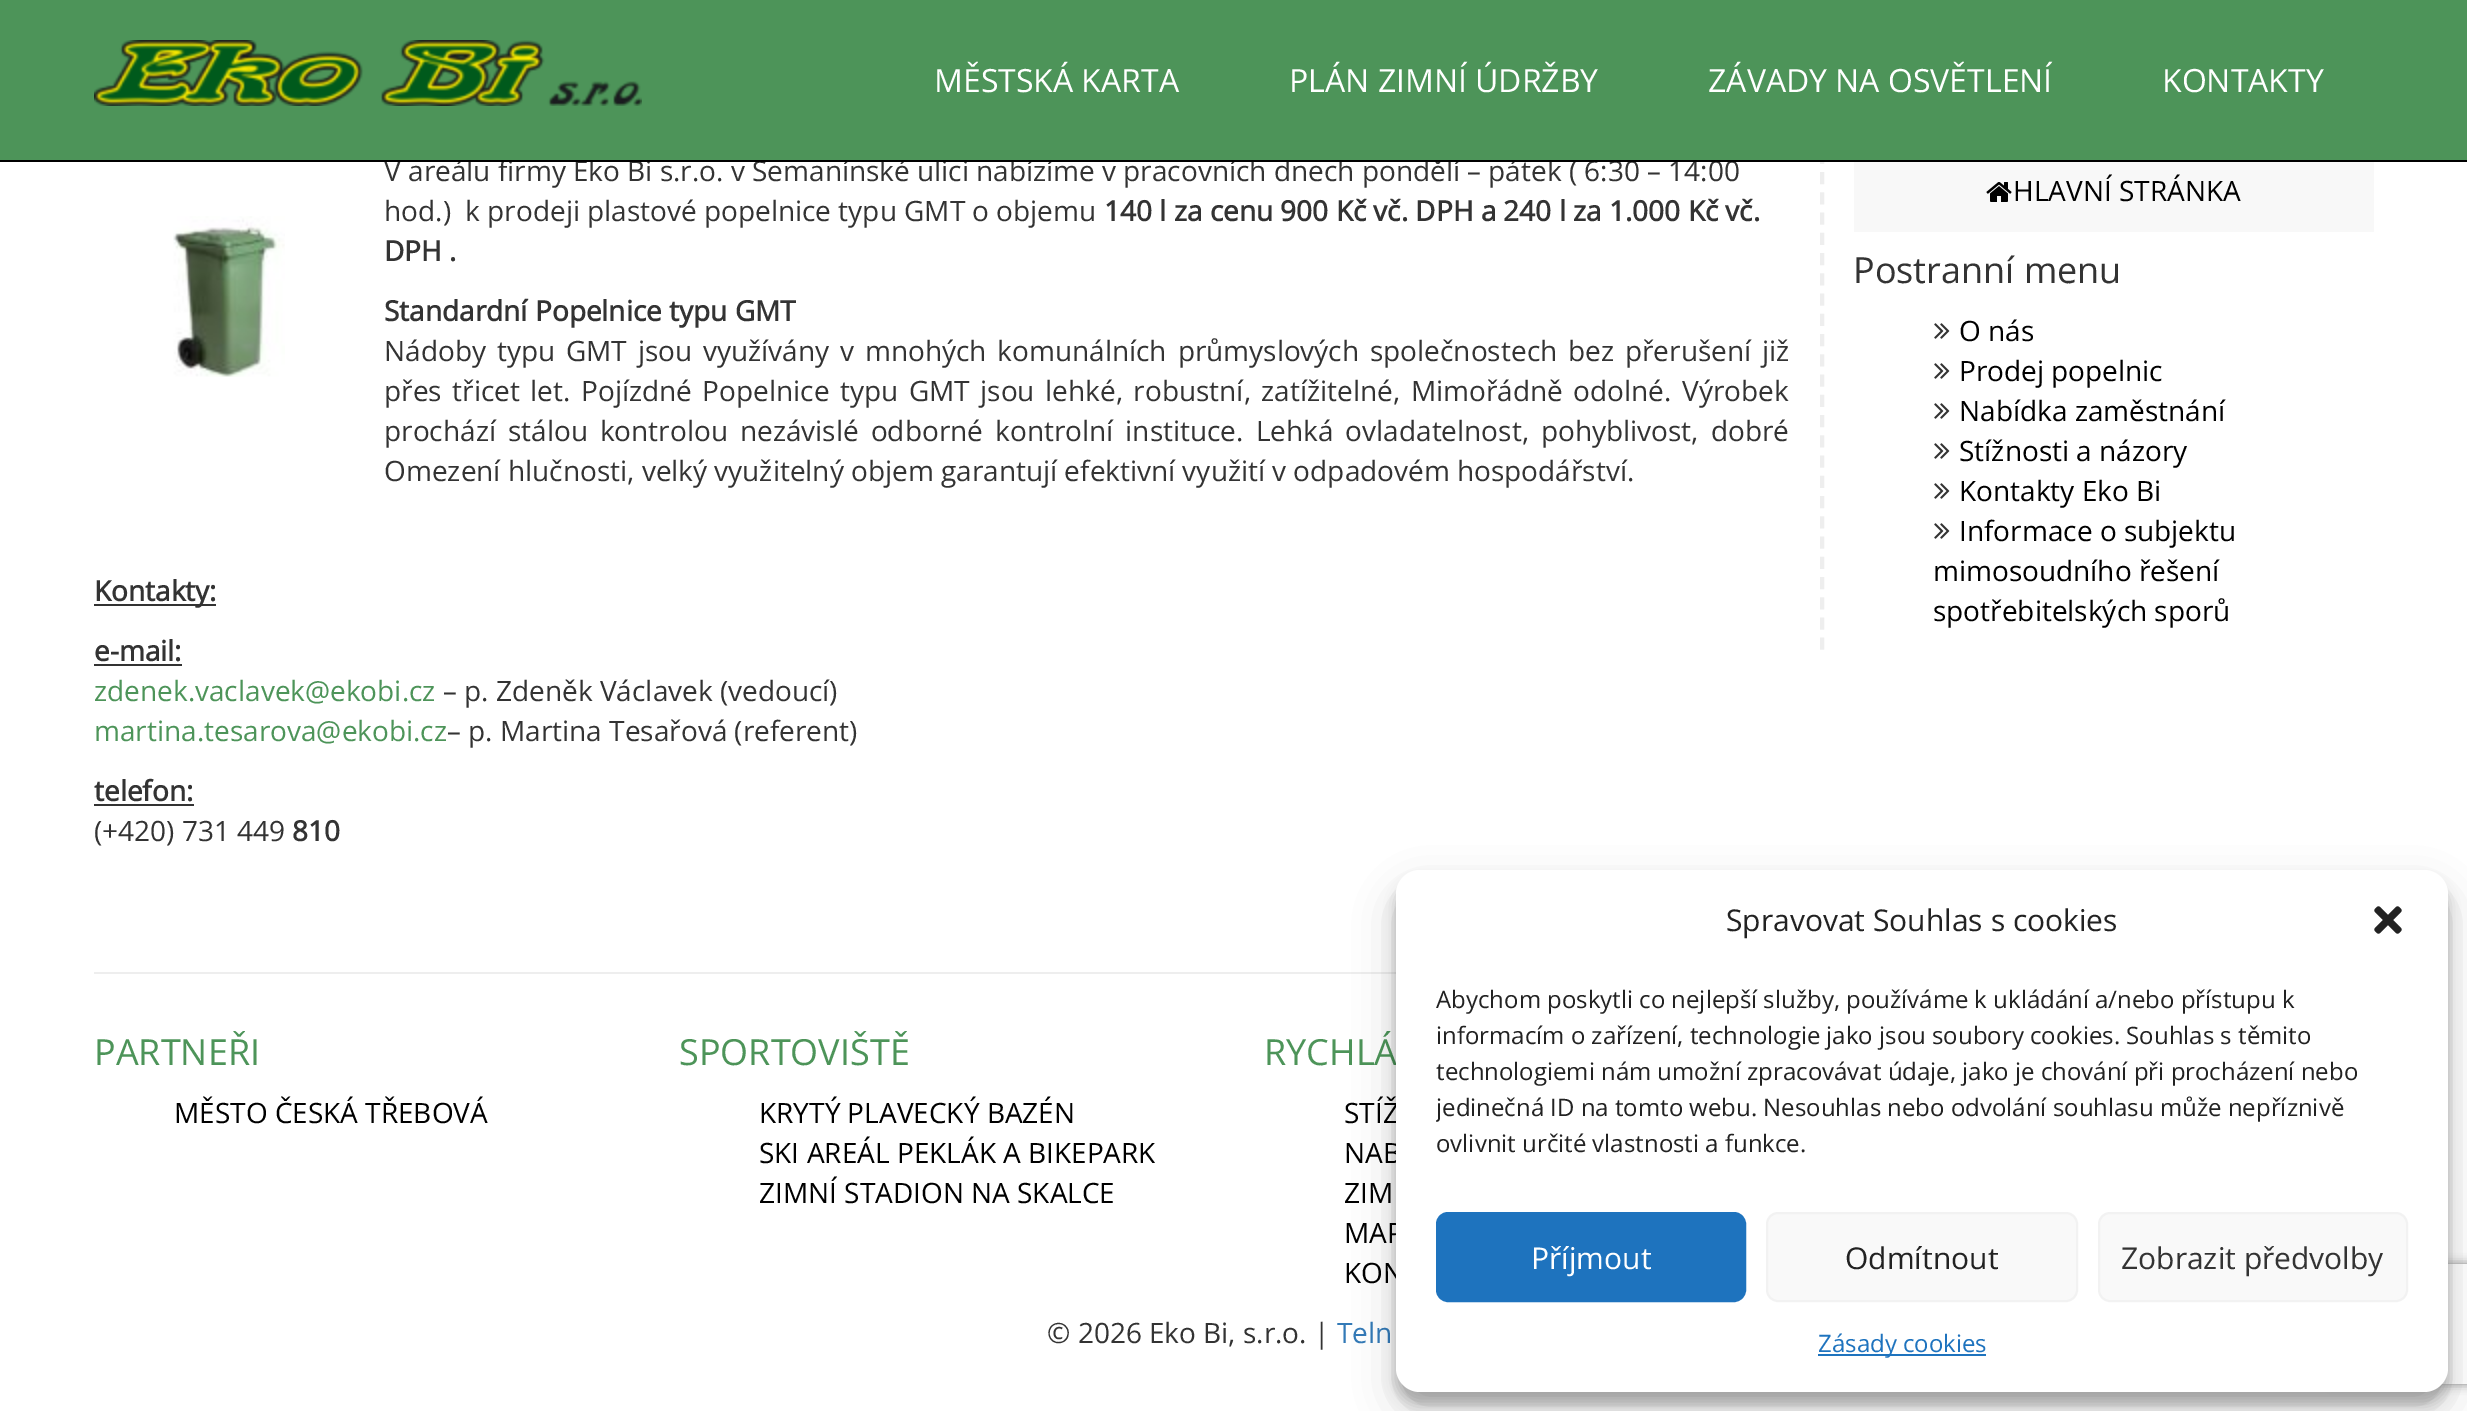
%!PS-Adobe-3.0
%%BoundingBox: 0 0 2467 1411
%%LanguageLevel: 3
%%Pages: 1
%%EndComments
%%BeginProlog
/m { moveto } bind def
/l { lineto } bind def
/c { curveto } bind def
/h { closepath } bind def
/f { fill } bind def
/S { stroke } bind def
/q { gsave } bind def
/Q { grestore } bind def
/w { setlinewidth } bind def
/fn { [ exch dup neg 0 0 3 -1 roll 0 0 ] selectfont } def
/tx { moveto show } def
/bx { rectfill } def
/al { dup .setfillconstantalpha .setstrokeconstantalpha } def
/rr { 5 dict begin { /r /h /w /y /x } { exch def } forall
  x r add y moveto x w add y 2 copy h add r arct x w add y h add x 1 index r arct
  x y h add x y r arct x y 2 copy exch w add exch r arct closepath end } def
/sh { 12 dict begin { /a /b /q /h /w /y /x } { exch def } forall gsave /was 0 def
  9 -2 -9 { dup b mul 4 div /e exch def 1 sub .425 mul 2.718 exch exp 1 add a .99 .min exch div /now exch def
    1 1 now sub 1 was sub div sub al /was now def
    w h .min e 2 mul add 0 gt { x e sub y e sub w e 2 mul add h e 2 mul add
      q e add b .6 mul add w h .min 2 div e add .min 0 .max rr fill } if } for grestore end } def
/im { 5 dict begin { /h /w /y /x /name } { exch def } forall
  gsave x y translate w h scale
  w h 8 [w 0 0 h 0 0] name (r) file false 3 colorimage grestore end } def
%%EndProlog
%%BeginSetup
<< /PageSize [2467 1411] /PageUsesTransparency true >> setpagedevice
%%EndSetup
%%Page: 1 1
0 .pushpdf14devicefilter
0 1411 translate 1 -1 scale
4 setmiterlimit
1 setgray
0 0 2467 1411 bx
/OpenSans-Regular 28 fn
0.2 setgray
(V areálu firmy Eko Bi s.r.o. v Semanínské ulici nabízíme v pracovních dnech pondělí – pátek \( 6:30 – 14:00) 384 181 tx
0.933 setgray
4 w
[12 8.24] 0 setdash
1822 152 m 1822 650 l S
0.302 0.58 0.349 setrgbcolor
0 0 2467 160 bx
0 setgray
0 160 2467 2 bx
(image0.raw) 94 40 548 66 im
/OpenSans-Regular 32 fn
1 setgray
(MĚSTSKÁ KARTA) 934 92 tx
(PLÁN ZIMNÍ ÚDRŽBY) 1289 92 tx
(ZÁVADY NA OSVĚTLENÍ) 1708 92 tx
(KONTAKTY) 2162 92 tx
/OpenSans-Regular 28 fn
0.2 setgray
(hod.\)  k prodeji plastové popelnice typu GMT o objemu) 384 221 tx
/OpenSans-Bold 28 fn
(140 l za cenu 900 Kč vč. DPH a 240 l za 1.000 Kč vč.) 1104 221 tx
(image1.raw) 173 216 112 161 im
(DPH .) 384 261 tx
(Standardní Popelnice typu GMT) 384 321 tx
/OpenSans-Regular 28 fn
384 361 m 3.6 0 32 (Nádoby typu GMT jsou využívány v mnohých komunálních průmyslových společnostech bez přerušení již) widthshow
384 401 m 3.25 0 32 (přes třicet let. Pojízdné Popelnice typu GMT jsou lehké, robustní, zatížitelné, Mimořádně odolné. Výrobek) widthshow
384 441 m 4.75 0 32 (prochází stálou kontrolou nezávislé odborné kontrolní instituce. Lehká ovladatelnost, pohyblivost, dobré) widthshow
(Omezení hlučnosti, velký využitelný objem garantují efektivní využití v odpadovém hospodářství.) 384 481 tx
94 604 122 2 bx
/OpenSans-Bold 28 fn
(Kontakty:) 94 601 tx
(e-mail:) 94 661 tx
94 664 88 2 bx
/OpenSans-Regular 28 fn
0.302 0.58 0.349 setrgbcolor
(zdenek.vaclavek@ekobi.cz) 94 701 tx
0.2 setgray
(– p. Zdeněk Václavek \(vedoucí\)) 443 701 tx
0.302 0.58 0.349 setrgbcolor
(martina.tesarova@ekobi.cz) 94 741 tx
0.2 setgray
(– p. Martina Tesařová \(referent\)) 447 741 tx
/OpenSans-Bold 28 fn
(telefon:) 94 801 tx
94 804 100 2 bx
/OpenSans-Regular 28 fn
(\(+420\) 731 449) 94 841 tx
/OpenSans-Bold 28 fn
(810) 292 841 tx
0.973 setgray
1854 162 520 70 bx
(image2.raw) 1986 182 26 20 im
/OpenSans-Regular 28 fn
0 setgray
(HLAVNÍ STRÁNKA) 2013 201 tx
/OpenSans-Regular 36 fn
0.2 setgray
(Postranní menu) 1853 283 tx
(image3.raw) 1934 323 16 16 im
/OpenSans-Regular 28 fn
0 setgray
(O nás) 1959 341 tx
(image3.raw) 1934 363 16 16 im
(Prodej popelnic) 1959 381 tx
(image3.raw) 1934 403 16 16 im
(Nabídka zaměstnání) 1959 421 tx
(image3.raw) 1934 443 16 16 im
(Stížnosti a názory) 1959 461 tx
(image3.raw) 1934 483 16 16 im
(Kontakty Eko Bi) 1959 501 tx
(image3.raw) 1934 523 16 16 im
(Informace o subjektu) 1959 541 tx
(mimosoudního řešení) 1933 581 tx
(spotřebitelských sporů) 1933 621 tx
0.933 setgray
94 972 1302 2 bx
/OpenSans-Regular 36 fn
0.302 0.58 0.349 setrgbcolor
(PARTNEŘI) 94 1065 tx
/OpenSans-Regular 28 fn
0 setgray
(MĚSTO ČESKÁ TŘEBOVÁ) 174 1123 tx
/OpenSans-Regular 36 fn
0.302 0.58 0.349 setrgbcolor
(SPORTOVIŠTĚ) 679 1065 tx
/OpenSans-Regular 28 fn
0 setgray
(KRYTÝ PLAVECKÝ BAZÉN) 759 1123 tx
(SKI AREÁL PEKLÁK A BIKEPARK) 759 1163 tx
(ZIMNÍ STADION NA SKALCE) 759 1203 tx
/OpenSans-Regular 36 fn
0.302 0.58 0.349 setrgbcolor
(RYCHLÁ) 1264 1065 tx
/OpenSans-Regular 28 fn
0 setgray
(STÍŽ) 1344 1123 tx
(NAB) 1344 1163 tx
(ZIM) 1344 1203 tx
(MAP) 1344 1243 tx
(KON) 1344 1283 tx
0.2 setgray
(© 2026 Eko Bi, s.r.o. |) 1047 1343 tx
0.2 0.478 0.718 setrgbcolor
(Teln) 1337 1343 tx
0 setgray
1396 882 1052 522 24 6 0.23 sh
1396 890 1052 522 24 20 0.19 sh
q
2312 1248 m 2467 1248 l 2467 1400 l 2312 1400 l h 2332 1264 m 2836 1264 l 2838 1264 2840 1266 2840 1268 c 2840 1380 l 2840 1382 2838 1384 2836 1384 c 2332 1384 l 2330 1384 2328 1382 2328 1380 c 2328 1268 l 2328 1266 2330 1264 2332 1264 c h eoclip newpath
0.502 setgray
2328 1264 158 120 4 5 1 sh
Q
1 setgray
1396 870 1052 522 24 rr f
/OpenSans-Regular 30 fn
0.133 setgray
(Spravovat Souhlas s cookies) 1726 931 tx
(image4.raw) 2374 906 28 28 im
/OpenSans-Regular 24 fn
(Abychom poskytli co nejlepší služby, používáme k ukládání a/nebo přístupu k) 1436 1008 tx
(informacím o zařízení, technologie jako jsou soubory cookies. Souhlas s těmito) 1436 1044 tx
(technologiemi nám umožní zpracovávat údaje, jako je chování při procházení nebo) 1436 1080 tx
q
1436 982 972 190 rectclip
(jedinečná ID na tomto webu. Nesouhlas nebo odvolání souhlasu může nepříznivě) 1436 1116 tx
Q
(ovlivnit určité vlastnosti a funkce.) 1436 1152 tx
0.118 0.451 0.745 setrgbcolor
1437 1213 308 88 11 rr q f Q
2 w
[] 0 setdash
S
/OpenSans-Regular 30 fn
1 setgray
(Příjmout) 1531 1269 tx
0.976 setgray
1767 1213 310 88 11 rr q f Q
0.949 setgray
S
0.133 setgray
(Odmítnout) 1845 1269 tx
0.976 setgray
2099 1213 308 88 11 rr q f Q
0.949 setgray
S
0.2 setgray
(Zobrazit předvolby) 2121 1269 tx
0.118 0.451 0.745 setrgbcolor
1818 1354 168 2 bx
/OpenSans-Regular 24 fn
(Zásady cookies) 1818 1352 tx
.poppdf14devicefilter showpage
%%EOF
